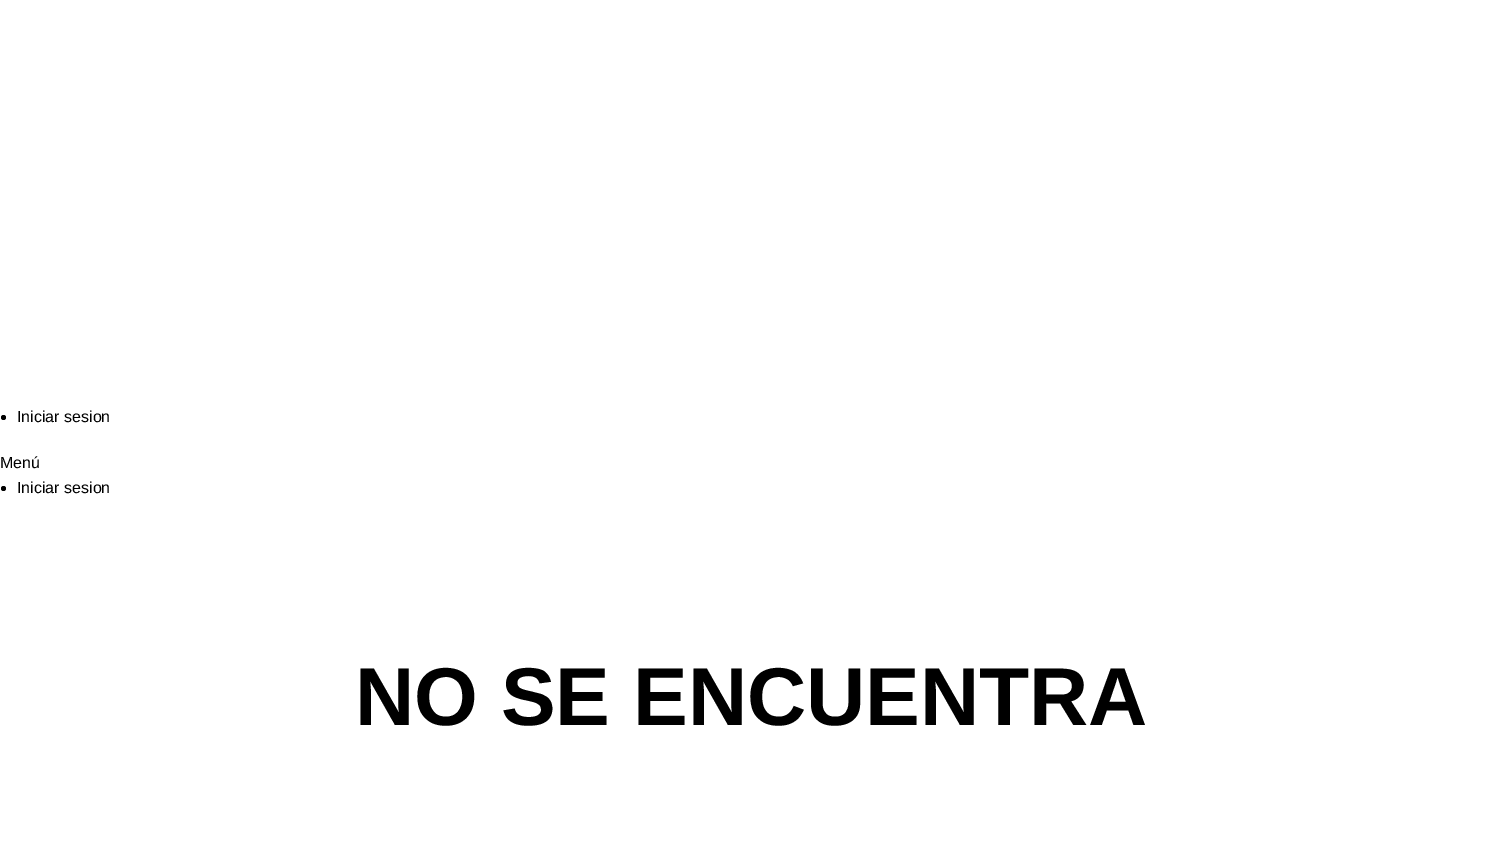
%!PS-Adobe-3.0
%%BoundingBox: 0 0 1503 853
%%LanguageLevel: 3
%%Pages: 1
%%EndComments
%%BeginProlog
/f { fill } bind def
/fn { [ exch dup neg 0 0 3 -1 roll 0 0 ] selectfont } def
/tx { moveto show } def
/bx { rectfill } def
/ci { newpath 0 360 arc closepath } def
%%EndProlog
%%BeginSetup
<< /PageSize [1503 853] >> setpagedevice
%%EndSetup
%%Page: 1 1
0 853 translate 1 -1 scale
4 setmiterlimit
1 setgray
0 0 1503 853 bx
0 setgray
3.5 417.5 2.5 ci f
/LiberationSans-Regular 16 fn
(Iniciar sesion) 17 422 tx
(Menú) 0 468 tx
3.5 488.5 2.5 ci f
(Iniciar sesion) 17 493 tx
/LiberationSans-Bold 82 fn
(NO SE ENCUENTRA) 355 725 tx
showpage
%%EOF
